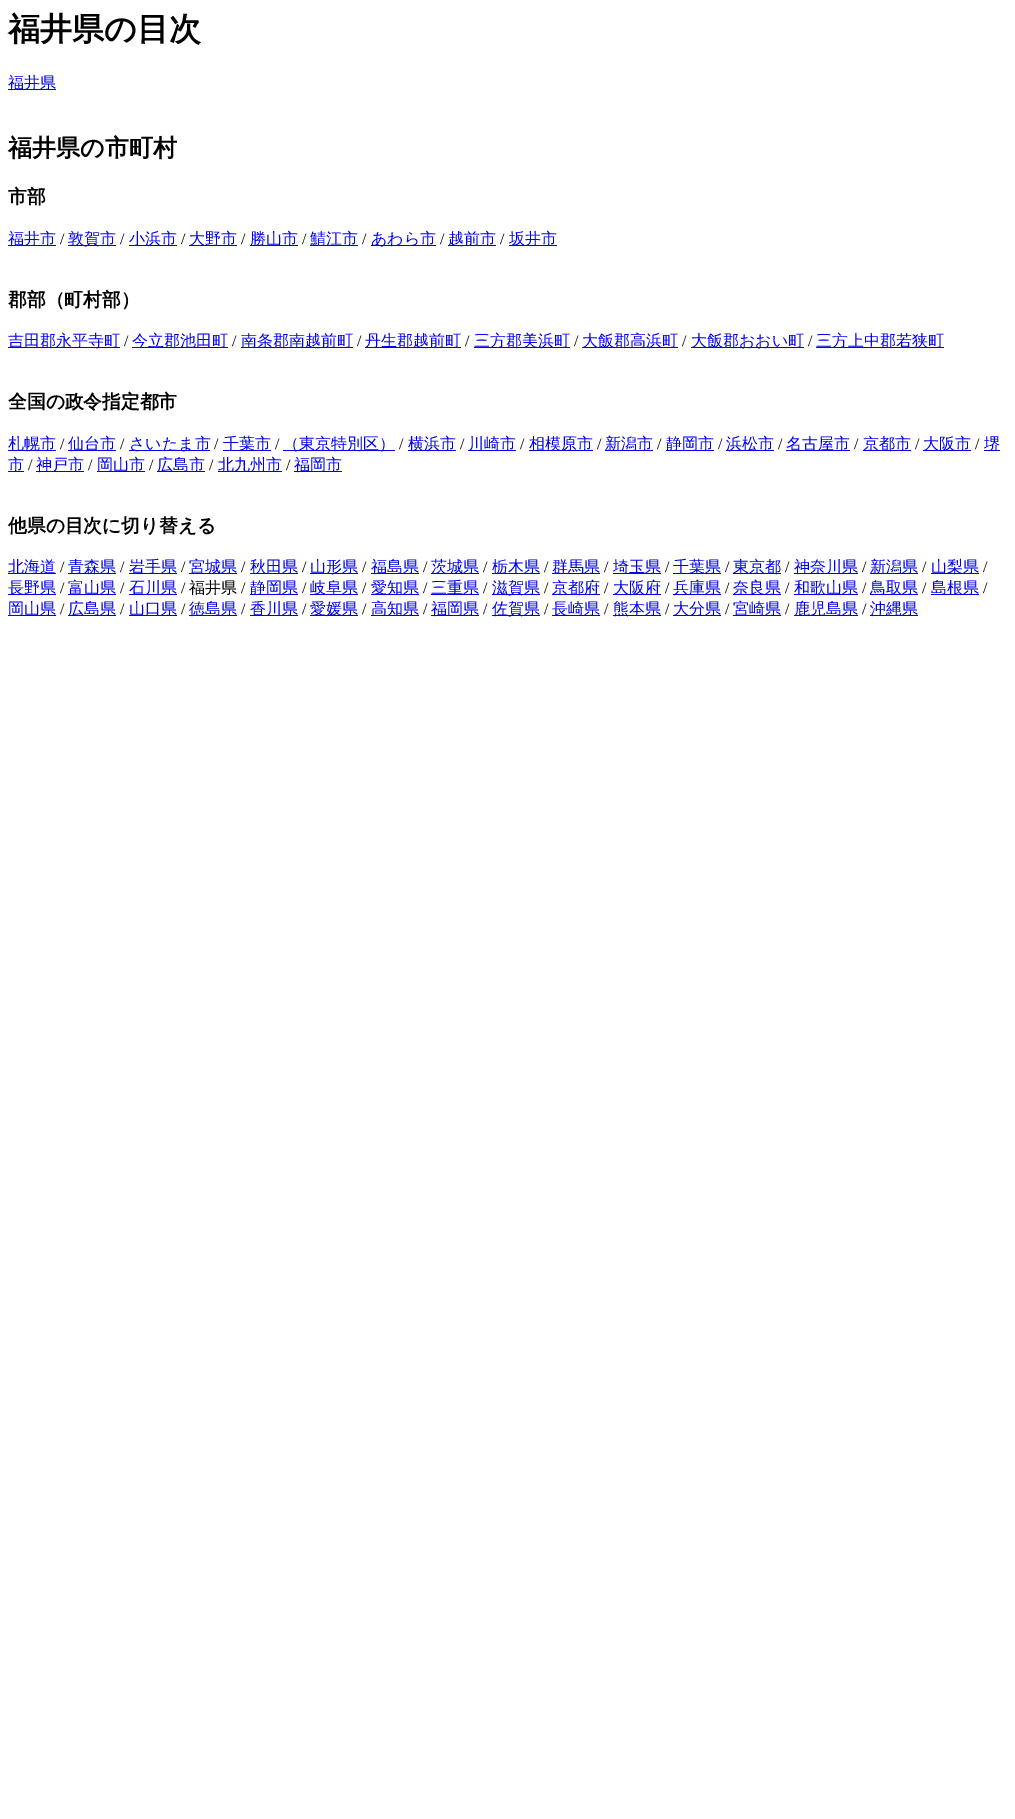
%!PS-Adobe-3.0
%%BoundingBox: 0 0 1015 1819
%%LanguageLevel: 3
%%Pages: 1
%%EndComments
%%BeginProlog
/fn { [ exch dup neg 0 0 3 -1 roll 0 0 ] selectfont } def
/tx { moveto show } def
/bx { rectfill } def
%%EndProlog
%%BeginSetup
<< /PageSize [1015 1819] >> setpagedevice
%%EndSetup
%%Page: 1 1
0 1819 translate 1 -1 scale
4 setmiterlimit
1 setgray
0 0 1015 1819 bx
/WenQuanYiZenHei-Bold 32 fn
0 setgray
(福井県の目次) 8 40 tx
0 0 0.933 setrgbcolor
8 89 48 1 bx
/WenQuanYiZenHei-Medium 16 fn
(福井県) 8 88 tx
/WenQuanYiZenHei-Bold 24 fn
0 setgray
(福井県の市町村) 8 156 tx
/WenQuanYiZenHei-Bold 18.75 fn
(市部) 8 203 tx
0 0 0.933 setrgbcolor
8 245 48 1 bx
/WenQuanYiZenHei-Medium 16 fn
(福井市) 8 244 tx
/LiberationSerif-Regular 16 fn
0 setgray
(/) 60 244 tx
0 0 0.933 setrgbcolor
68 245 48 1 bx
/WenQuanYiZenHei-Medium 16 fn
(敦賀市) 68 244 tx
/LiberationSerif-Regular 16 fn
0 setgray
(/) 120 244 tx
0 0 0.933 setrgbcolor
129 245 48 1 bx
/WenQuanYiZenHei-Medium 16 fn
(小浜市) 129 244 tx
/LiberationSerif-Regular 16 fn
0 setgray
(/) 181 244 tx
0 0 0.933 setrgbcolor
189 245 48 1 bx
/WenQuanYiZenHei-Medium 16 fn
(大野市) 189 244 tx
/LiberationSerif-Regular 16 fn
0 setgray
(/) 241 244 tx
0 0 0.933 setrgbcolor
250 245 48 1 bx
/WenQuanYiZenHei-Medium 16 fn
(勝山市) 250 244 tx
/LiberationSerif-Regular 16 fn
0 setgray
(/) 302 244 tx
0 0 0.933 setrgbcolor
310 245 48 1 bx
/WenQuanYiZenHei-Medium 16 fn
(鯖江市) 310 244 tx
/LiberationSerif-Regular 16 fn
0 setgray
(/) 362 244 tx
0 0 0.933 setrgbcolor
371 245 65 1 bx
/WenQuanYiZenHei-Medium 16 fn
(あわら市) 371 244 tx
/LiberationSerif-Regular 16 fn
0 setgray
(/) 440 244 tx
0 0 0.933 setrgbcolor
448 245 48 1 bx
/WenQuanYiZenHei-Medium 16 fn
(越前市) 448 244 tx
/LiberationSerif-Regular 16 fn
0 setgray
(/) 500 244 tx
0 0 0.933 setrgbcolor
509 245 48 1 bx
/WenQuanYiZenHei-Medium 16 fn
(坂井市) 509 244 tx
/WenQuanYiZenHei-Bold 18.75 fn
0 setgray
(郡部（町村部）) 8 306 tx
0 0 0.933 setrgbcolor
8 347 112 1 bx
/WenQuanYiZenHei-Medium 16 fn
(吉田郡永平寺町) 8 346 tx
/LiberationSerif-Regular 16 fn
0 setgray
(/) 124 346 tx
0 0 0.933 setrgbcolor
132 347 96 1 bx
/WenQuanYiZenHei-Medium 16 fn
(今立郡池田町) 132 346 tx
/LiberationSerif-Regular 16 fn
0 setgray
(/) 232 346 tx
0 0 0.933 setrgbcolor
241 347 112 1 bx
/WenQuanYiZenHei-Medium 16 fn
(南条郡南越前町) 241 346 tx
/LiberationSerif-Regular 16 fn
0 setgray
(/) 357 346 tx
0 0 0.933 setrgbcolor
365 347 96 1 bx
/WenQuanYiZenHei-Medium 16 fn
(丹生郡越前町) 365 346 tx
/LiberationSerif-Regular 16 fn
0 setgray
(/) 465 346 tx
0 0 0.933 setrgbcolor
474 347 96 1 bx
/WenQuanYiZenHei-Medium 16 fn
(三方郡美浜町) 474 346 tx
/LiberationSerif-Regular 16 fn
0 setgray
(/) 574 346 tx
0 0 0.933 setrgbcolor
582 347 96 1 bx
/WenQuanYiZenHei-Medium 16 fn
(大飯郡高浜町) 582 346 tx
/LiberationSerif-Regular 16 fn
0 setgray
(/) 682 346 tx
0 0 0.933 setrgbcolor
691 347 113 1 bx
/WenQuanYiZenHei-Medium 16 fn
(大飯郡おおい町) 691 346 tx
/LiberationSerif-Regular 16 fn
0 setgray
(/) 808 346 tx
0 0 0.933 setrgbcolor
816 347 128 1 bx
/WenQuanYiZenHei-Medium 16 fn
(三方上中郡若狭町) 816 346 tx
/WenQuanYiZenHei-Bold 18.75 fn
0 setgray
(全国の政令指定都市) 8 408 tx
0 0 0.933 setrgbcolor
8 450 48 1 bx
/WenQuanYiZenHei-Medium 16 fn
(札幌市) 8 449 tx
/LiberationSerif-Regular 16 fn
0 setgray
(/) 60 449 tx
0 0 0.933 setrgbcolor
68 450 48 1 bx
/WenQuanYiZenHei-Medium 16 fn
(仙台市) 68 449 tx
/LiberationSerif-Regular 16 fn
0 setgray
(/) 120 449 tx
0 0 0.933 setrgbcolor
129 450 81 1 bx
/WenQuanYiZenHei-Medium 16 fn
(さいたま市) 129 449 tx
/LiberationSerif-Regular 16 fn
0 setgray
(/) 214 449 tx
0 0 0.933 setrgbcolor
223 450 48 1 bx
/WenQuanYiZenHei-Medium 16 fn
(千葉市) 223 449 tx
/LiberationSerif-Regular 16 fn
0 setgray
(/) 275 449 tx
0 0 0.933 setrgbcolor
283 450 112 1 bx
/WenQuanYiZenHei-Medium 16 fn
(（東京特別区）) 283 449 tx
/LiberationSerif-Regular 16 fn
0 setgray
(/) 399 449 tx
0 0 0.933 setrgbcolor
408 450 48 1 bx
/WenQuanYiZenHei-Medium 16 fn
(横浜市) 408 449 tx
/LiberationSerif-Regular 16 fn
0 setgray
(/) 460 449 tx
0 0 0.933 setrgbcolor
468 450 48 1 bx
/WenQuanYiZenHei-Medium 16 fn
(川崎市) 468 449 tx
/LiberationSerif-Regular 16 fn
0 setgray
(/) 520 449 tx
0 0 0.933 setrgbcolor
529 450 64 1 bx
/WenQuanYiZenHei-Medium 16 fn
(相模原市) 529 449 tx
/LiberationSerif-Regular 16 fn
0 setgray
(/) 597 449 tx
0 0 0.933 setrgbcolor
605 450 48 1 bx
/WenQuanYiZenHei-Medium 16 fn
(新潟市) 605 449 tx
/LiberationSerif-Regular 16 fn
0 setgray
(/) 657 449 tx
0 0 0.933 setrgbcolor
666 450 48 1 bx
/WenQuanYiZenHei-Medium 16 fn
(静岡市) 666 449 tx
/LiberationSerif-Regular 16 fn
0 setgray
(/) 718 449 tx
0 0 0.933 setrgbcolor
726 450 48 1 bx
/WenQuanYiZenHei-Medium 16 fn
(浜松市) 726 449 tx
/LiberationSerif-Regular 16 fn
0 setgray
(/) 778 449 tx
0 0 0.933 setrgbcolor
786 450 64 1 bx
/WenQuanYiZenHei-Medium 16 fn
(名古屋市) 786 449 tx
/LiberationSerif-Regular 16 fn
0 setgray
(/) 854 449 tx
0 0 0.933 setrgbcolor
863 450 48 1 bx
/WenQuanYiZenHei-Medium 16 fn
(京都市) 863 449 tx
/LiberationSerif-Regular 16 fn
0 setgray
(/) 915 449 tx
0 0 0.933 setrgbcolor
923 450 48 1 bx
/WenQuanYiZenHei-Medium 16 fn
(大阪市) 923 449 tx
/LiberationSerif-Regular 16 fn
0 setgray
(/) 975 449 tx
0 0 0.933 setrgbcolor
984 450 16 1 bx
/WenQuanYiZenHei-Medium 16 fn
(堺) 984 449 tx
8 471 16 1 bx
(市) 8 470 tx
/LiberationSerif-Regular 16 fn
0 setgray
(/) 28 470 tx
0 0 0.933 setrgbcolor
36 471 48 1 bx
/WenQuanYiZenHei-Medium 16 fn
(神戸市) 36 470 tx
/LiberationSerif-Regular 16 fn
0 setgray
(/) 88 470 tx
0 0 0.933 setrgbcolor
97 471 48 1 bx
/WenQuanYiZenHei-Medium 16 fn
(岡山市) 97 470 tx
/LiberationSerif-Regular 16 fn
0 setgray
(/) 149 470 tx
0 0 0.933 setrgbcolor
157 471 48 1 bx
/WenQuanYiZenHei-Medium 16 fn
(広島市) 157 470 tx
/LiberationSerif-Regular 16 fn
0 setgray
(/) 209 470 tx
0 0 0.933 setrgbcolor
218 471 64 1 bx
/WenQuanYiZenHei-Medium 16 fn
(北九州市) 218 470 tx
/LiberationSerif-Regular 16 fn
0 setgray
(/) 286 470 tx
0 0 0.933 setrgbcolor
294 471 48 1 bx
/WenQuanYiZenHei-Medium 16 fn
(福岡市) 294 470 tx
/WenQuanYiZenHei-Bold 18.75 fn
0 setgray
(他県の目次に切り替える) 8 532 tx
0 0 0.933 setrgbcolor
8 573 48 1 bx
/WenQuanYiZenHei-Medium 16 fn
(北海道) 8 572 tx
/LiberationSerif-Regular 16 fn
0 setgray
(/) 60 572 tx
0 0 0.933 setrgbcolor
68 573 48 1 bx
/WenQuanYiZenHei-Medium 16 fn
(青森県) 68 572 tx
/LiberationSerif-Regular 16 fn
0 setgray
(/) 120 572 tx
0 0 0.933 setrgbcolor
129 573 48 1 bx
/WenQuanYiZenHei-Medium 16 fn
(岩手県) 129 572 tx
/LiberationSerif-Regular 16 fn
0 setgray
(/) 181 572 tx
0 0 0.933 setrgbcolor
189 573 48 1 bx
/WenQuanYiZenHei-Medium 16 fn
(宮城県) 189 572 tx
/LiberationSerif-Regular 16 fn
0 setgray
(/) 241 572 tx
0 0 0.933 setrgbcolor
250 573 48 1 bx
/WenQuanYiZenHei-Medium 16 fn
(秋田県) 250 572 tx
/LiberationSerif-Regular 16 fn
0 setgray
(/) 302 572 tx
0 0 0.933 setrgbcolor
310 573 48 1 bx
/WenQuanYiZenHei-Medium 16 fn
(山形県) 310 572 tx
/LiberationSerif-Regular 16 fn
0 setgray
(/) 362 572 tx
0 0 0.933 setrgbcolor
371 573 48 1 bx
/WenQuanYiZenHei-Medium 16 fn
(福島県) 371 572 tx
/LiberationSerif-Regular 16 fn
0 setgray
(/) 423 572 tx
0 0 0.933 setrgbcolor
431 573 48 1 bx
/WenQuanYiZenHei-Medium 16 fn
(茨城県) 431 572 tx
/LiberationSerif-Regular 16 fn
0 setgray
(/) 483 572 tx
0 0 0.933 setrgbcolor
492 573 48 1 bx
/WenQuanYiZenHei-Medium 16 fn
(栃木県) 492 572 tx
/LiberationSerif-Regular 16 fn
0 setgray
(/) 544 572 tx
0 0 0.933 setrgbcolor
552 573 48 1 bx
/WenQuanYiZenHei-Medium 16 fn
(群馬県) 552 572 tx
/LiberationSerif-Regular 16 fn
0 setgray
(/) 604 572 tx
0 0 0.933 setrgbcolor
613 573 48 1 bx
/WenQuanYiZenHei-Medium 16 fn
(埼玉県) 613 572 tx
/LiberationSerif-Regular 16 fn
0 setgray
(/) 665 572 tx
0 0 0.933 setrgbcolor
673 573 48 1 bx
/WenQuanYiZenHei-Medium 16 fn
(千葉県) 673 572 tx
/LiberationSerif-Regular 16 fn
0 setgray
(/) 725 572 tx
0 0 0.933 setrgbcolor
733 573 48 1 bx
/WenQuanYiZenHei-Medium 16 fn
(東京都) 733 572 tx
/LiberationSerif-Regular 16 fn
0 setgray
(/) 785 572 tx
0 0 0.933 setrgbcolor
794 573 64 1 bx
/WenQuanYiZenHei-Medium 16 fn
(神奈川県) 794 572 tx
/LiberationSerif-Regular 16 fn
0 setgray
(/) 862 572 tx
0 0 0.933 setrgbcolor
870 573 48 1 bx
/WenQuanYiZenHei-Medium 16 fn
(新潟県) 870 572 tx
/LiberationSerif-Regular 16 fn
0 setgray
(/) 922 572 tx
0 0 0.933 setrgbcolor
931 573 48 1 bx
/WenQuanYiZenHei-Medium 16 fn
(山梨県) 931 572 tx
/LiberationSerif-Regular 16 fn
0 setgray
(/) 983 572 tx
0 0 0.933 setrgbcolor
8 594 48 1 bx
/WenQuanYiZenHei-Medium 16 fn
(長野県) 8 593 tx
/LiberationSerif-Regular 16 fn
0 setgray
(/) 60 593 tx
0 0 0.933 setrgbcolor
68 594 48 1 bx
/WenQuanYiZenHei-Medium 16 fn
(富山県) 68 593 tx
/LiberationSerif-Regular 16 fn
0 setgray
(/) 120 593 tx
0 0 0.933 setrgbcolor
129 594 48 1 bx
/WenQuanYiZenHei-Medium 16 fn
(石川県) 129 593 tx
/LiberationSerif-Regular 16 fn
0 setgray
(/) 181 593 tx
/WenQuanYiZenHei-Medium 16 fn
(福井県) 189 593 tx
/LiberationSerif-Regular 16 fn
(/) 241 593 tx
0 0 0.933 setrgbcolor
250 594 48 1 bx
/WenQuanYiZenHei-Medium 16 fn
(静岡県) 250 593 tx
/LiberationSerif-Regular 16 fn
0 setgray
(/) 302 593 tx
0 0 0.933 setrgbcolor
310 594 48 1 bx
/WenQuanYiZenHei-Medium 16 fn
(岐阜県) 310 593 tx
/LiberationSerif-Regular 16 fn
0 setgray
(/) 362 593 tx
0 0 0.933 setrgbcolor
371 594 48 1 bx
/WenQuanYiZenHei-Medium 16 fn
(愛知県) 371 593 tx
/LiberationSerif-Regular 16 fn
0 setgray
(/) 423 593 tx
0 0 0.933 setrgbcolor
431 594 48 1 bx
/WenQuanYiZenHei-Medium 16 fn
(三重県) 431 593 tx
/LiberationSerif-Regular 16 fn
0 setgray
(/) 483 593 tx
0 0 0.933 setrgbcolor
492 594 48 1 bx
/WenQuanYiZenHei-Medium 16 fn
(滋賀県) 492 593 tx
/LiberationSerif-Regular 16 fn
0 setgray
(/) 544 593 tx
0 0 0.933 setrgbcolor
552 594 48 1 bx
/WenQuanYiZenHei-Medium 16 fn
(京都府) 552 593 tx
/LiberationSerif-Regular 16 fn
0 setgray
(/) 604 593 tx
0 0 0.933 setrgbcolor
613 594 48 1 bx
/WenQuanYiZenHei-Medium 16 fn
(大阪府) 613 593 tx
/LiberationSerif-Regular 16 fn
0 setgray
(/) 665 593 tx
0 0 0.933 setrgbcolor
673 594 48 1 bx
/WenQuanYiZenHei-Medium 16 fn
(兵庫県) 673 593 tx
/LiberationSerif-Regular 16 fn
0 setgray
(/) 725 593 tx
0 0 0.933 setrgbcolor
733 594 48 1 bx
/WenQuanYiZenHei-Medium 16 fn
(奈良県) 733 593 tx
/LiberationSerif-Regular 16 fn
0 setgray
(/) 785 593 tx
0 0 0.933 setrgbcolor
794 594 64 1 bx
/WenQuanYiZenHei-Medium 16 fn
(和歌山県) 794 593 tx
/LiberationSerif-Regular 16 fn
0 setgray
(/) 862 593 tx
0 0 0.933 setrgbcolor
870 594 48 1 bx
/WenQuanYiZenHei-Medium 16 fn
(鳥取県) 870 593 tx
/LiberationSerif-Regular 16 fn
0 setgray
(/) 922 593 tx
0 0 0.933 setrgbcolor
931 594 48 1 bx
/WenQuanYiZenHei-Medium 16 fn
(島根県) 931 593 tx
/LiberationSerif-Regular 16 fn
0 setgray
(/) 983 593 tx
0 0 0.933 setrgbcolor
8 615 48 1 bx
/WenQuanYiZenHei-Medium 16 fn
(岡山県) 8 614 tx
/LiberationSerif-Regular 16 fn
0 setgray
(/) 60 614 tx
0 0 0.933 setrgbcolor
68 615 48 1 bx
/WenQuanYiZenHei-Medium 16 fn
(広島県) 68 614 tx
/LiberationSerif-Regular 16 fn
0 setgray
(/) 120 614 tx
0 0 0.933 setrgbcolor
129 615 48 1 bx
/WenQuanYiZenHei-Medium 16 fn
(山口県) 129 614 tx
/LiberationSerif-Regular 16 fn
0 setgray
(/) 181 614 tx
0 0 0.933 setrgbcolor
189 615 48 1 bx
/WenQuanYiZenHei-Medium 16 fn
(徳島県) 189 614 tx
/LiberationSerif-Regular 16 fn
0 setgray
(/) 241 614 tx
0 0 0.933 setrgbcolor
250 615 48 1 bx
/WenQuanYiZenHei-Medium 16 fn
(香川県) 250 614 tx
/LiberationSerif-Regular 16 fn
0 setgray
(/) 302 614 tx
0 0 0.933 setrgbcolor
310 615 48 1 bx
/WenQuanYiZenHei-Medium 16 fn
(愛媛県) 310 614 tx
/LiberationSerif-Regular 16 fn
0 setgray
(/) 362 614 tx
0 0 0.933 setrgbcolor
371 615 48 1 bx
/WenQuanYiZenHei-Medium 16 fn
(高知県) 371 614 tx
/LiberationSerif-Regular 16 fn
0 setgray
(/) 423 614 tx
0 0 0.933 setrgbcolor
431 615 48 1 bx
/WenQuanYiZenHei-Medium 16 fn
(福岡県) 431 614 tx
/LiberationSerif-Regular 16 fn
0 setgray
(/) 483 614 tx
0 0 0.933 setrgbcolor
492 615 48 1 bx
/WenQuanYiZenHei-Medium 16 fn
(佐賀県) 492 614 tx
/LiberationSerif-Regular 16 fn
0 setgray
(/) 544 614 tx
0 0 0.933 setrgbcolor
552 615 48 1 bx
/WenQuanYiZenHei-Medium 16 fn
(長崎県) 552 614 tx
/LiberationSerif-Regular 16 fn
0 setgray
(/) 604 614 tx
0 0 0.933 setrgbcolor
613 615 48 1 bx
/WenQuanYiZenHei-Medium 16 fn
(熊本県) 613 614 tx
/LiberationSerif-Regular 16 fn
0 setgray
(/) 665 614 tx
0 0 0.933 setrgbcolor
673 615 48 1 bx
/WenQuanYiZenHei-Medium 16 fn
(大分県) 673 614 tx
/LiberationSerif-Regular 16 fn
0 setgray
(/) 725 614 tx
0 0 0.933 setrgbcolor
733 615 48 1 bx
/WenQuanYiZenHei-Medium 16 fn
(宮崎県) 733 614 tx
/LiberationSerif-Regular 16 fn
0 setgray
(/) 785 614 tx
0 0 0.933 setrgbcolor
794 615 64 1 bx
/WenQuanYiZenHei-Medium 16 fn
(鹿児島県) 794 614 tx
/LiberationSerif-Regular 16 fn
0 setgray
(/) 862 614 tx
0 0 0.933 setrgbcolor
870 615 48 1 bx
/WenQuanYiZenHei-Medium 16 fn
(沖縄県) 870 614 tx
showpage
%%EOF
